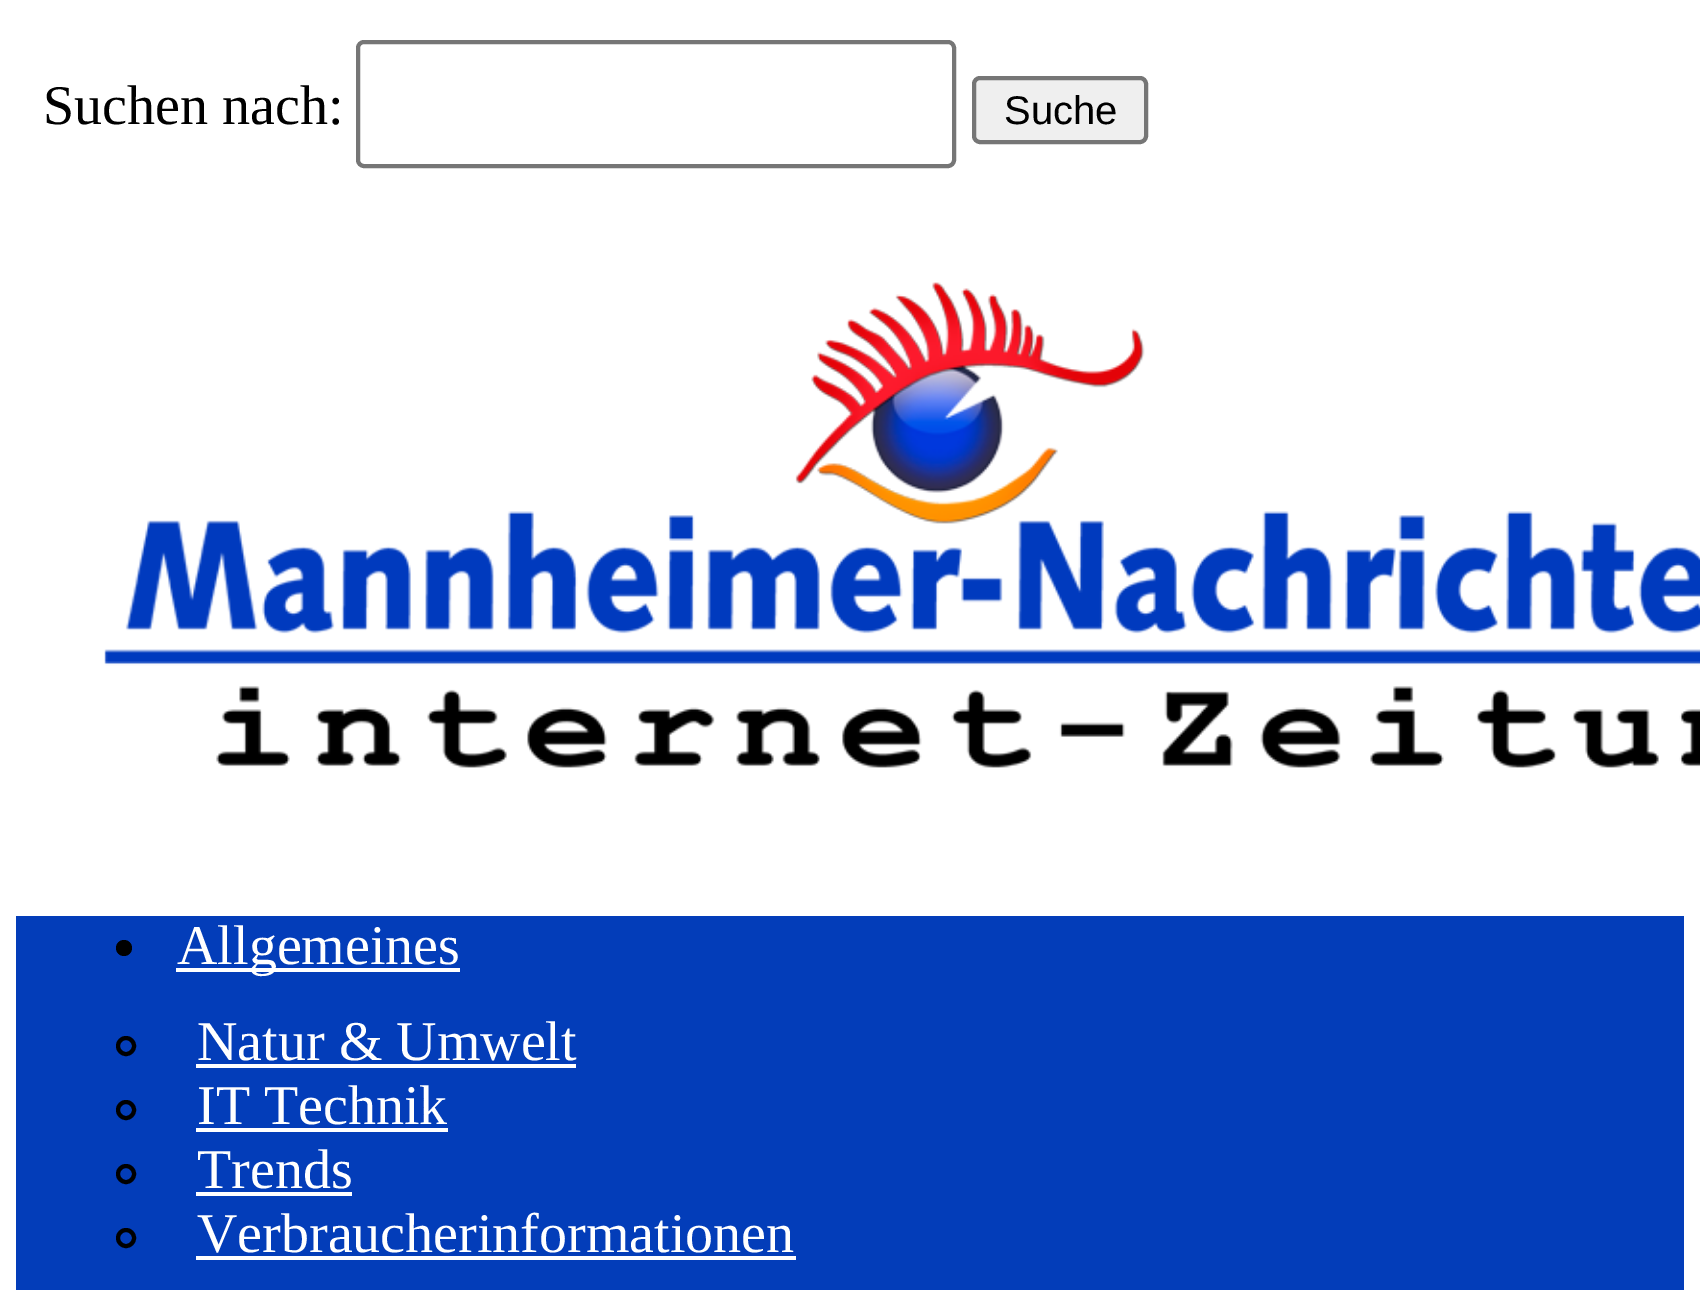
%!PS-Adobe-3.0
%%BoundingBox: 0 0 1700 1290
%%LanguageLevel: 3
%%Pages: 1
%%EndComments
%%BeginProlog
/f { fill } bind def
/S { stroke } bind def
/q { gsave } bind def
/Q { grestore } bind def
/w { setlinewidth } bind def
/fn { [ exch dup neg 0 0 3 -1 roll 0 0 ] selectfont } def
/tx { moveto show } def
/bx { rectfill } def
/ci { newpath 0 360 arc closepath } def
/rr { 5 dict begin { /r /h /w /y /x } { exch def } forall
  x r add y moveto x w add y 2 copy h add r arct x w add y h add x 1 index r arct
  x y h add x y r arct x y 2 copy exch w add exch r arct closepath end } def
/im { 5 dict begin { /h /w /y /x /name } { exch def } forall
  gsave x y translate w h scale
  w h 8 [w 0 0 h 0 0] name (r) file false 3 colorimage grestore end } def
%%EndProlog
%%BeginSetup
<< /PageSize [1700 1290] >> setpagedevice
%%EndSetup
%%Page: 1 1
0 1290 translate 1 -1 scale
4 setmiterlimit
1 setgray
0 0 1700 1290 bx
/LiberationSerif-Regular 56 fn
0 setgray
(Suchen nach:) 43 124 tx
0.463 setgray
4 w
358 42 596 124 6 rr S
0.937 setgray
974 78 172 64 6 rr q f Q
0.463 setgray
S
/LiberationSans-Regular 40 fn
0 setgray
(Suche) 1004 124 tx
(image0.raw) 104 282 1596 486 im
0.012 0.239 0.725 setrgbcolor
16 916 1668 374 bx
0 setgray
124 948 8 ci f
1 setgray
176 968 284 4 bx
/LiberationSerif-Regular 56 fn
(Allgemeines) 177 964 tx
0 setgray
126 1046 8 ci S
1 setgray
(Natur & Umwelt) 197 1060 tx
196 1064 380 4 bx
0 setgray
126 1110 8 ci S
1 setgray
(IT Technik) 197 1124 tx
196 1128 252 4 bx
0 setgray
126 1174 8 ci S
1 setgray
(Trends) 197 1188 tx
196 1192 156 4 bx
0 setgray
126 1238 8 ci S
1 setgray
(Verbraucherinformationen) 197 1252 tx
196 1256 600 4 bx
showpage
%%EOF
